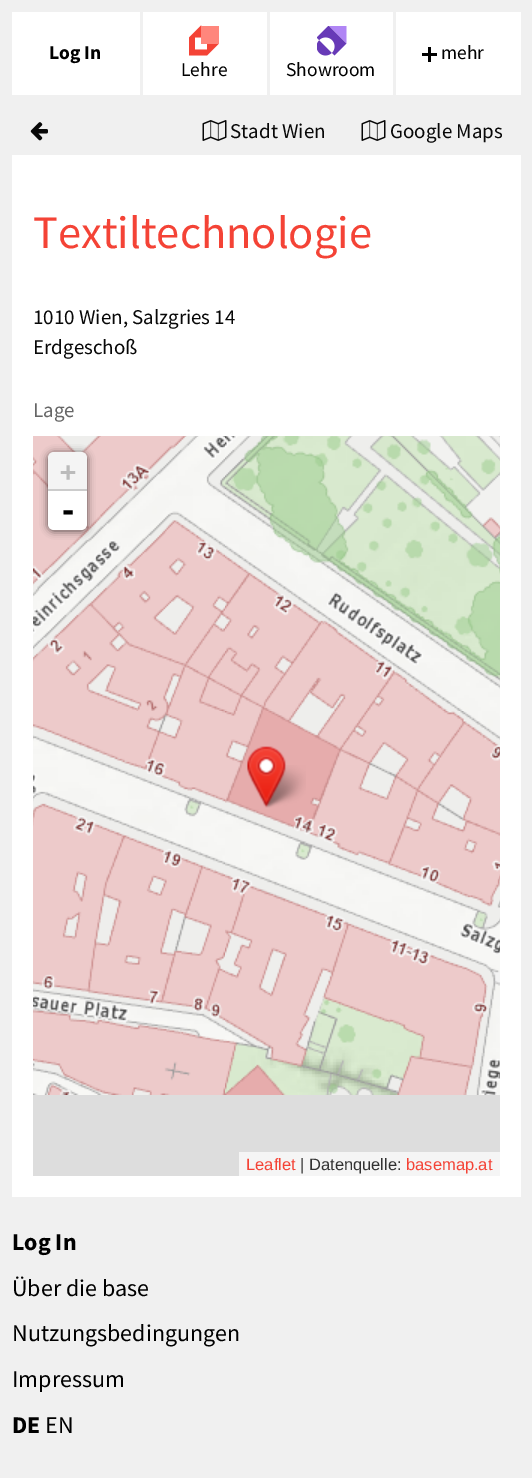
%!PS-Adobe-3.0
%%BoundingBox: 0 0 532 1478
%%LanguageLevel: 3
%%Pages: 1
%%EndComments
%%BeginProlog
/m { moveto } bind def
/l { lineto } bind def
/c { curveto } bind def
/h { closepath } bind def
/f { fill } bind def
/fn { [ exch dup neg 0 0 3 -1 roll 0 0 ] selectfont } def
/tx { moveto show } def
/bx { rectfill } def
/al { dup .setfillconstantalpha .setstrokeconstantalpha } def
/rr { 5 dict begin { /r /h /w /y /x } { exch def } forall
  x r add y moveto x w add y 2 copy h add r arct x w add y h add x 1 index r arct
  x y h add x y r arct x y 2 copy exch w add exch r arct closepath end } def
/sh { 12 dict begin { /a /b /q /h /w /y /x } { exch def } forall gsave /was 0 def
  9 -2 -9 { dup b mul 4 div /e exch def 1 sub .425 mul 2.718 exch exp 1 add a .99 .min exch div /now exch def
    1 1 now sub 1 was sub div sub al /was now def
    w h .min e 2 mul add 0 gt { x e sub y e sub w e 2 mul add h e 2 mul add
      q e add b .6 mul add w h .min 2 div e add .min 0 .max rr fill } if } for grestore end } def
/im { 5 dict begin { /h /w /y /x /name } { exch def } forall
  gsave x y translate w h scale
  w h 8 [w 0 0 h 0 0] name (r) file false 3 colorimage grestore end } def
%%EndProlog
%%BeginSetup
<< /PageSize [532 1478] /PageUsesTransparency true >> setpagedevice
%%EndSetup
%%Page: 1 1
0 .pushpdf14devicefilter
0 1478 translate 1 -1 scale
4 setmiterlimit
0.941 setgray
0 0 532 1478 bx
1 setgray
12 12 509 83 bx
/SourceSansPro-Bold 19.5 fn
0 setgray
(Log In) 49 59 tx
0.941 setgray
393 12 3 83 bx
0 setgray
428 47 3 15 bx
/SourceSansPro-Regular 19.5 fn
(mehr) 441 59 tx
422 53 15 3 bx
0.941 setgray
140 12 3 83 bx
0.957 0.263 0.212 setrgbcolor
201 25.5 m 189 37.5 l 189 55.5 l 207 55.5 l 219 43.5 l h 195 49.5 m 195 37.5 l 207 37.5 l 207 49.5 l h f
1 0.525 0.486 setrgbcolor
201 26 18 18 bx
0 setgray
(Lehre) 181 76 tx
0.941 setgray
267 12 3 83 bx
(image0.raw) 317 26 30 30 im
0 setgray
(Showroom) 286 76 tx
(image1.raw) 30 122 18 19 im
(image2.raw) 202 120 25 21 im
/SourceSansPro-Regular 21 fn
0.031 setgray
(Stadt Wien) 230 138 tx
(image2.raw) 361 120 25 21 im
(Google Maps) 390 138 tx
1 setgray
12 155 509 1042 bx
/SourceSansPro-Regular 46.5 fn
0.957 0.263 0.212 setrgbcolor
(Textiltechnologie) 33 248 tx
/SourceSansPro-Regular 21 fn
0.031 setgray
(1010 Wien, Salzgries 14) 33 324 tx
(Erdgeschoß) 33 354 tx
0.4 setgray
(Lage) 33 417 tx
0.867 setgray
33 1095 467 81 bx
(image3.raw) 33 436 192 275 im
(image4.raw) 225 436 275 275 im
(image5.raw) 33 711 192 384 im
(image6.raw) 225 711 275 384 im
(image8.raw) 261 765 45 43 im
(image7.raw) 247 746 39 62 im
0 setgray
48 453 39 78 6 4 0.65 sh
0.957 setgray
54 452 m 81 452 l 84.5 452 87 454.5 87 458 c 87 491 l 48 491 l 48 458 l 48 454.5 50.5 452 54 452 c h f
0.8 setgray
48 489 39 2 bx
/DejaVuSansMono-Bold 27 fn
0.733 setgray
(+) 60 481 tx
1 setgray
48 491 m 87 491 l 87 524 l 87 527.5 84.5 530 81 530 c 54 530 l 50.5 530 48 527.5 48 524 c h f
/DejaVuSansMono-Bold 30 fn
0 setgray
(-) 59 521 tx
0.961 setgray
239 1152 261 24 bx
/LiberationSans-Regular 16.5 fn
0.957 0.263 0.212 setrgbcolor
(Leaflet) 246 1170 tx
0.2 setgray
(| Datenquelle:) 300 1170 tx
0.957 0.263 0.212 setrgbcolor
(basemap.at) 406 1170 tx
/SourceSansPro-Bold 24 fn
0 setgray
(Log In) 12 1250 tx
/SourceSansPro-Regular 24 fn
(Über die base) 12 1296 tx
(Nutzungsbedingungen) 12 1341 tx
(Impressum) 12 1387 tx
/SourceSansPro-Bold 24 fn
(DE) 12 1433 tx
/SourceSansPro-Regular 24 fn
(EN) 45 1433 tx
.poppdf14devicefilter showpage
%%EOF
